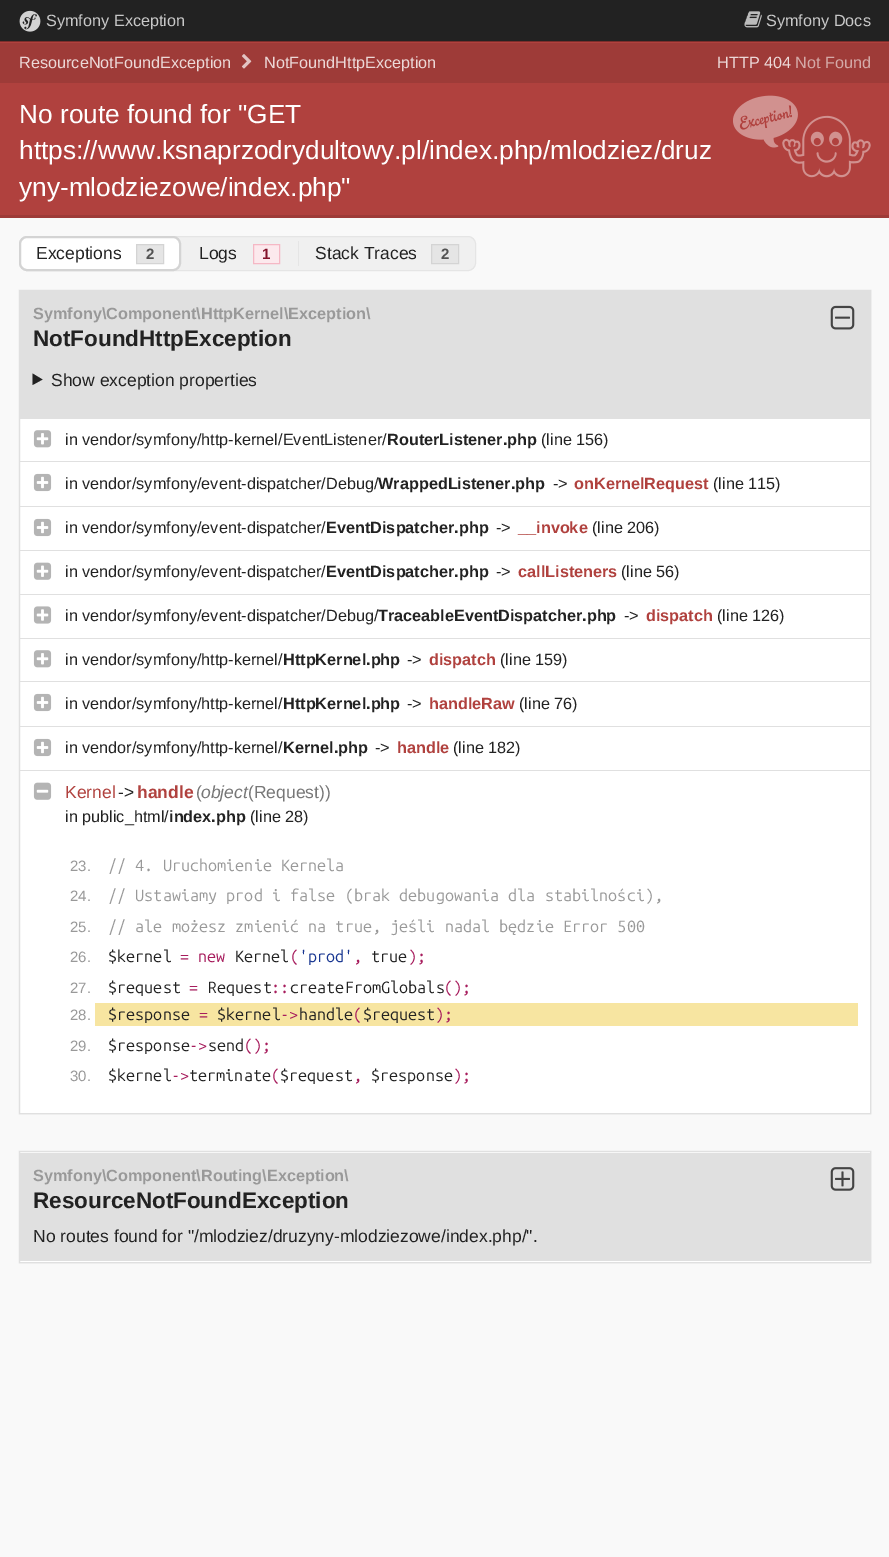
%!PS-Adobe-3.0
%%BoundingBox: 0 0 889 1557
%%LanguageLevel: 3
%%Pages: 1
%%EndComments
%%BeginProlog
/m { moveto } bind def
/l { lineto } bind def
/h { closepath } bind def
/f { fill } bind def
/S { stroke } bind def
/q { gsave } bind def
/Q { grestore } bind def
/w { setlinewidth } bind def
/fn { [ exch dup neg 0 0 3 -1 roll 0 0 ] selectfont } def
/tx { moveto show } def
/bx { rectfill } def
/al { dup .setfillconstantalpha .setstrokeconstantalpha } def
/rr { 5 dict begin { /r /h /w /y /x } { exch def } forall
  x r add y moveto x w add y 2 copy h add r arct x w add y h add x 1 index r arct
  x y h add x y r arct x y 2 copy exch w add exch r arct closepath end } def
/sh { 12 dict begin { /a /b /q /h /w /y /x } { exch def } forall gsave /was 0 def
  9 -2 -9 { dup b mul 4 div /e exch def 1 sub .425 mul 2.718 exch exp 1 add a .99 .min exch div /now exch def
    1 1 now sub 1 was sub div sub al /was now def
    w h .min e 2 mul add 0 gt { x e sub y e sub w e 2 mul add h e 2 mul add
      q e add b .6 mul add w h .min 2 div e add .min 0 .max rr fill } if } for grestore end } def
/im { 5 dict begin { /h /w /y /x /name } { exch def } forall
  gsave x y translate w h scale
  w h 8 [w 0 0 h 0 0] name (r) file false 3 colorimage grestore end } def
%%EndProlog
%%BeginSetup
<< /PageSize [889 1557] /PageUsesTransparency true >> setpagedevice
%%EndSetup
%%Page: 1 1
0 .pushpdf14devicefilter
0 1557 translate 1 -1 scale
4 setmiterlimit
0.976 setgray
0 0 889 1557 bx
0.133 setgray
0 0 889 41 bx
(image0.raw) 19 10 22 22 im
/LiberationSans-Regular 16.25 fn
0.784 setgray
(Symfony Exception) 46 26 tx
(image1.raw) 744 11 18 17 im
(Symfony Docs) 766 26 tx
0.69 0.255 0.243 setrgbcolor
0 42 889 173 bx
0.482 0.18 0.169 setrgbcolor
0 41 889 1 bx
0.62 0.231 0.22 setrgbcolor
0 215 889 3 bx
0 43 889 40 bx
0.925 0.847 0.843 setrgbcolor
(ResourceNotFoundException) 19 68 tx
(image2.raw) 241 54 11 15 im
(NotFoundHttpException) 264 68 tx
(HTTP 404) 717 68 tx
0.831 0.663 0.655 setrgbcolor
(Not Found) 795 68 tx
/LiberationSans-Regular 26.25 fn
1 setgray
(No route found for "GET) 19 123 tx
(https://www.ksnaprzodrydultowy.pl/index.php/mlodziez/druz) 19 159 tx
(yny-mlodziezowe/index.php") 19 196 tx
(image3.raw) 733 95 138 83 im
0.941 setgray
19.5 236.5 456 34 7.5 rr q f Q
0.898 setgray
S
1 setgray
20 237 160 33 7 rr q f Q
0.831 setgray
2 w
S
/LiberationSans-Regular 17.5 fn
0.133 setgray
(Exceptions) 36 259 tx
0.898 setgray
136.5 244.5 m 163.5 244.5 l 163.5 263.5 l 136.5 263.5 l h q f Q
0.831 setgray
1 w
S
/LiberationSans-Bold 15 fn
0.322 setgray
(2) 146 259 tx
/LiberationSans-Regular 17.5 fn
0.133 setgray
(Logs) 199 259 tx
0.988 0.914 0.929 setrgbcolor
253.5 244.5 m 279.5 244.5 l 279.5 263.5 l 253.5 263.5 l h q f Q
0.961 0.722 0.773 setrgbcolor
S
/LiberationSans-Bold 15 fn
0.514 0.071 0.165 setrgbcolor
(1) 262 259 tx
0.898 setgray
298 241 1 25 bx
/LiberationSans-Regular 17.5 fn
0.133 setgray
(Stack Traces) 315 259 tx
0.898 setgray
431.5 244.5 m 458.5 244.5 l 458.5 263.5 l 431.5 263.5 l h q f Q
0.831 setgray
S
/LiberationSans-Bold 15 fn
0.322 setgray
(2) 441 259 tx
0.502 setgray
19 290 852 824 0 0.5 0.2 sh
1 setgray
20 419 850 694 bx
0.878 setgray
19.5 290.5 851 823 rectstroke
/LiberationSans-Bold 16.25 fn
0.6 setgray
(Symfony\\Component\\HttpKernel\\Exception\\) 33 319 tx
/LiberationSans-Bold 22.5 fn
0.133 setgray
(NotFoundHttpException) 33 346 tx
(image4.raw) 830 305 25 25 im
32.5 373.5 m 42.5 379.5 l 32.5 385 l h f
/LiberationSans-Regular 17.5 fn
(Show exception properties) 51 386 tx
(image5.raw) 33 430 19 18 im
/LiberationSans-Regular 16.25 fn
(in vendor/symfony/http-kernel/EventListener/) 65 445 tx
/LiberationSans-Bold 16.25 fn
(RouterListener.php) 387 445 tx
/LiberationSans-Regular 16.25 fn
(\(line 156\)) 541 445 tx
0.878 setgray
20 461 850 1 bx
(image6.raw) 33 473 19 19 im
0.133 setgray
(in vendor/symfony/event-dispatcher/Debug/) 65 489 tx
/LiberationSans-Bold 16.25 fn
(WrappedListener.php) 378 489 tx
/LiberationSans-Regular 16.25 fn
(->) 553 489 tx
/LiberationSans-Bold 16.25 fn
0.69 0.255 0.243 setrgbcolor
(onKernelRequest) 574 489 tx
/LiberationSans-Regular 16.25 fn
0.133 setgray
(\(line 115\)) 713 489 tx
0.878 setgray
20 506 850 1 bx
(image6.raw) 33 518 19 19 im
0.133 setgray
(in vendor/symfony/event-dispatcher/) 65 533 tx
/LiberationSans-Bold 16.25 fn
(EventDispatcher.php) 326 533 tx
/LiberationSans-Regular 16.25 fn
(->) 496 533 tx
/LiberationSans-Bold 16.25 fn
0.69 0.255 0.243 setrgbcolor
(__invoke) 518 533 tx
/LiberationSans-Regular 16.25 fn
0.133 setgray
(\(line 206\)) 592 533 tx
0.878 setgray
20 550 850 1 bx
(image7.raw) 33 562 19 18 im
0.133 setgray
(in vendor/symfony/event-dispatcher/) 65 577 tx
/LiberationSans-Bold 16.25 fn
(EventDispatcher.php) 326 577 tx
/LiberationSans-Regular 16.25 fn
(->) 496 577 tx
/LiberationSans-Bold 16.25 fn
0.69 0.255 0.243 setrgbcolor
(callListeners) 518 577 tx
/LiberationSans-Regular 16.25 fn
0.133 setgray
(\(line 56\)) 621 577 tx
0.878 setgray
20 594 850 1 bx
(image8.raw) 33 606 19 18 im
0.133 setgray
(in vendor/symfony/event-dispatcher/Debug/) 65 621 tx
/LiberationSans-Bold 16.25 fn
(TraceableEventDispatcher.php) 378 621 tx
/LiberationSans-Regular 16.25 fn
(->) 624 621 tx
/LiberationSans-Bold 16.25 fn
0.69 0.255 0.243 setrgbcolor
(dispatch) 646 621 tx
/LiberationSans-Regular 16.25 fn
0.133 setgray
(\(line 126\)) 717 621 tx
0.878 setgray
20 638 850 1 bx
(image5.raw) 33 650 19 18 im
0.133 setgray
(in vendor/symfony/http-kernel/) 65 665 tx
/LiberationSans-Bold 16.25 fn
(HttpKernel.php) 283 665 tx
/LiberationSans-Regular 16.25 fn
(->) 407 665 tx
/LiberationSans-Bold 16.25 fn
0.69 0.255 0.243 setrgbcolor
(dispatch) 429 665 tx
/LiberationSans-Regular 16.25 fn
0.133 setgray
(\(line 159\)) 500 665 tx
0.878 setgray
20 681 850 1 bx
(image6.raw) 33 693 19 19 im
0.133 setgray
(in vendor/symfony/http-kernel/) 65 709 tx
/LiberationSans-Bold 16.25 fn
(HttpKernel.php) 283 709 tx
/LiberationSans-Regular 16.25 fn
(->) 407 709 tx
/LiberationSans-Bold 16.25 fn
0.69 0.255 0.243 setrgbcolor
(handleRaw) 429 709 tx
/LiberationSans-Regular 16.25 fn
0.133 setgray
(\(line 76\)) 519 709 tx
0.878 setgray
20 726 850 1 bx
(image6.raw) 33 738 19 19 im
0.133 setgray
(in vendor/symfony/http-kernel/) 65 753 tx
/LiberationSans-Bold 16.25 fn
(Kernel.php) 283 753 tx
/LiberationSans-Regular 16.25 fn
(->) 375 753 tx
/LiberationSans-Bold 16.25 fn
0.69 0.255 0.243 setrgbcolor
(handle) 397 753 tx
/LiberationSans-Regular 16.25 fn
0.133 setgray
(\(line 182\)) 453 753 tx
0.878 setgray
20 770 850 1 bx
(image9.raw) 33 782 19 18 im
/LiberationSans-Regular 17.5 fn
0.69 0.255 0.243 setrgbcolor
(Kernel) 65 798 tx
0.133 setgray
(->) 118 798 tx
/LiberationSans-Bold 17.5 fn
0.69 0.255 0.243 setrgbcolor
(handle) 137 798 tx
/LiberationSans-Regular 17.5 fn
0.467 setgray
(\() 196 798 tx
/LiberationSans-Italic 17.5 fn
(object) 201 798 tx
/LiberationSans-Regular 17.5 fn
(\(Request\)\)) 248 798 tx
/LiberationSans-Regular 16.25 fn
0.133 setgray
(in public_html/) 65 822 tx
/LiberationSans-Bold 16.25 fn
(index.php) 169 822 tx
/LiberationSans-Regular 16.25 fn
(\(line 28\)) 250 822 tx
/LiberationSans-Regular 15 fn
0.6 setgray
(23.) 70 871 tx
/UbuntuMono-Regular 16.25 fn
(// 4. Uruchomienie Kernela) 108 871 tx
/LiberationSans-Regular 15 fn
(24.) 70 901 tx
/UbuntuMono-Regular 16.25 fn
(// Ustawiamy prod i false \(brak debugowania dla stabilności\),) 108 901 tx
/LiberationSans-Regular 15 fn
(25.) 70 932 tx
/UbuntuMono-Regular 16.25 fn
(// ale możesz zmienić na true, jeśli nadal będzie Error 500) 108 932 tx
/LiberationSans-Regular 15 fn
(26.) 70 962 tx
/UbuntuMono-Regular 16.25 fn
0.133 setgray
($kernel) 108 962 tx
0.655 0.114 0.365 setrgbcolor
(= new) 180 962 tx
0.133 setgray
(Kernel) 235 962 tx
0.655 0.114 0.365 setrgbcolor
(\() 290 962 tx
0.094 0.212 0.569 setrgbcolor
('prod') 299 962 tx
0.655 0.114 0.365 setrgbcolor
(,) 353 962 tx
0.133 setgray
(true) 371 962 tx
0.655 0.114 0.365 setrgbcolor
(\);) 408 962 tx
/LiberationSans-Regular 15 fn
0.6 setgray
(27.) 70 993 tx
/UbuntuMono-Regular 16.25 fn
0.133 setgray
($request) 108 993 tx
0.655 0.114 0.365 setrgbcolor
(=) 189 993 tx
0.133 setgray
(Request) 208 993 tx
0.655 0.114 0.365 setrgbcolor
(::) 271 993 tx
0.133 setgray
(createFromGlobals) 290 993 tx
0.655 0.114 0.365 setrgbcolor
(\(\);) 444 993 tx
0.969 0.898 0.631 setrgbcolor
95 1003 763 23 bx
0.133 setgray
($response) 108 1020 tx
($kernel) 217 1020 tx
(handle $request) 299 1020 tx
/LiberationSans-Regular 15 fn
0.6 setgray
(28.) 70 1020 tx
/UbuntuMono-Regular 16.25 fn
0.655 0.114 0.365 setrgbcolor
(=) 199 1020 tx
(->) 280 1020 tx
(\() 353 1020 tx
(\);) 435 1020 tx
/LiberationSans-Regular 15 fn
0.6 setgray
(29.) 70 1051 tx
/UbuntuMono-Regular 16.25 fn
0.133 setgray
($response) 108 1051 tx
0.655 0.114 0.365 setrgbcolor
(->) 189 1051 tx
0.133 setgray
(send) 208 1051 tx
0.655 0.114 0.365 setrgbcolor
(\(\);) 244 1051 tx
0.133 setgray
($kernel) 108 1081 tx
(terminate $request) 189 1081 tx
/LiberationSans-Regular 15 fn
0.6 setgray
(30.) 70 1081 tx
/UbuntuMono-Regular 16.25 fn
0.655 0.114 0.365 setrgbcolor
(->) 171 1081 tx
(\() 271 1081 tx
0.133 setgray
($response) 371 1081 tx
0.655 0.114 0.365 setrgbcolor
(\);) 453 1081 tx
(,) 353 1081 tx
0.502 setgray
19 1151 852 112 0 0.5 0.2 sh
1 setgray
19.5 1151.5 m 870.5 1151.5 l 870.5 1262.5 l 19.5 1262.5 l h q f Q
0.878 setgray
S
20 1153 850 108 bx
/LiberationSans-Bold 16.25 fn
0.6 setgray
(Symfony\\Component\\Routing\\Exception\\) 33 1181 tx
/LiberationSans-Bold 22.5 fn
0.133 setgray
(ResourceNotFoundException) 33 1208 tx
(image10.raw) 830 1167 25 24 im
/LiberationSans-Regular 17.5 fn
(No routes found for "/mlodziez/druzyny-mlodziezowe/index.php/".) 33 1242 tx
.poppdf14devicefilter showpage
%%EOF
